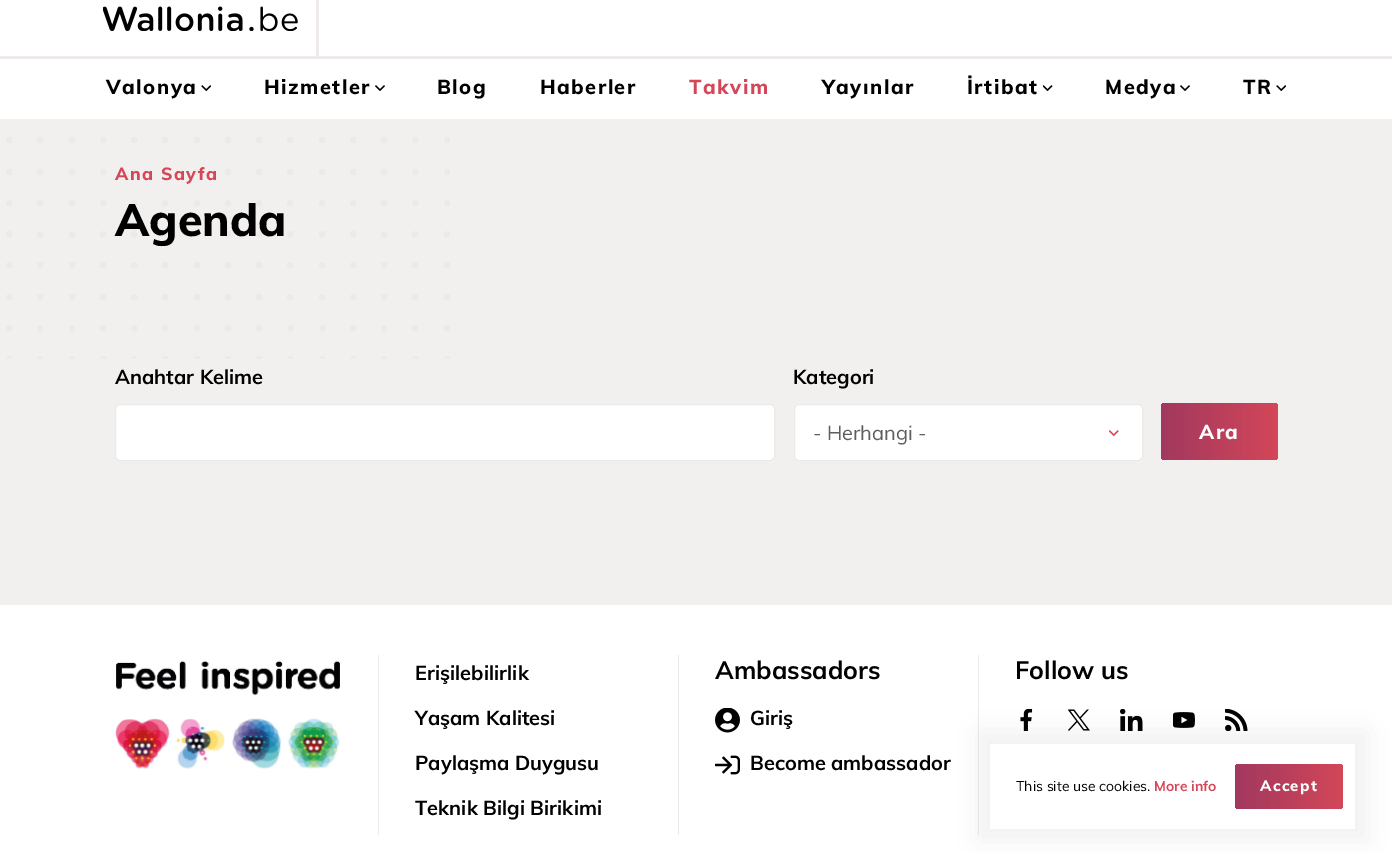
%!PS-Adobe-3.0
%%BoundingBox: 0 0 1392 853
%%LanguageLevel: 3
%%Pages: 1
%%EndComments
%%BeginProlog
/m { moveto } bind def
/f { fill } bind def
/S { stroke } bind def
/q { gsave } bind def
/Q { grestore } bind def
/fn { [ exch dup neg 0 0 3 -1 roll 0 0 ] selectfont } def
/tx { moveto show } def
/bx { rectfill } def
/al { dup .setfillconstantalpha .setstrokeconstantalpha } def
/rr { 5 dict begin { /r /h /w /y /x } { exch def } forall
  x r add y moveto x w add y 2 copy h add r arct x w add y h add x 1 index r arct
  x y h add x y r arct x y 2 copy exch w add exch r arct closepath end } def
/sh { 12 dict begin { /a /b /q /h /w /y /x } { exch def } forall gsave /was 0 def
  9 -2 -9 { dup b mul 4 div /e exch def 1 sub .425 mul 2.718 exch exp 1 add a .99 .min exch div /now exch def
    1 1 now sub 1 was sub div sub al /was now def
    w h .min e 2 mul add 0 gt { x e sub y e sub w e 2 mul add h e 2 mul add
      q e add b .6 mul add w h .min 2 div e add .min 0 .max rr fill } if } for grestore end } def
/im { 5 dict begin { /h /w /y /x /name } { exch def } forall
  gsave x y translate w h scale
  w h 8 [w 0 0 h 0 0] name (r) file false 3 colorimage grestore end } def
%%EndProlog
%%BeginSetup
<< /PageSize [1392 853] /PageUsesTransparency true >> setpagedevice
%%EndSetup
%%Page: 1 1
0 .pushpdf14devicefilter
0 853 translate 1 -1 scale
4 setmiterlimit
0.949 0.937 0.937 setrgbcolor
0 0 1392 853 bx
1 setgray
0 0 1392 119 bx
(image0.raw) 103 6 195 25 im
0.933 0.918 0.918 setrgbcolor
316 0 3 56 bx
0 56 1392 3 bx
/Muli-ExtraBold 20 fn
0 setgray
106 94 m 1.5 0 (Valonya) ashow
(image1.raw) 201 85 10 6 im
264 94 m 1.5 0 (Hizmetler) ashow
(image2.raw) 375 85 10 6 im
437 94 m 1.5 0 (Blog) ashow
540 94 m 1.5 0 (Haberler) ashow
0.827 0.278 0.345 setrgbcolor
689 94 m 1.5 0 (Takvim) ashow
0 setgray
822 94 m 1.5 0 (Yayınlar) ashow
967 94 m 1.5 0 (İrtibat) ashow
(image3.raw) 1043 85 10 6 im
1105 94 m 1.5 0 (Medya) ashow
(image2.raw) 1180 85 10 6 im
1243 94 m 1.5 0 (TR) ashow
(image1.raw) 1276 85 10 6 im
(image4.raw) 6 137 444 222 im
/Muli-ExtraBold 17.5 fn
0.827 0.278 0.345 setrgbcolor
115 180 m 1.5 0 (Ana Sayfa) ashow
/Muli-ExtraBold 45 fn
0 setgray
(Agenda) 115 236 tx
/Muli-Bold 20 fn
(Anahtar Kelime) 115 384 tx
1 setgray
115.5 404.5 659 56 4.5 rr q f Q
0.922 0.918 0.91 setrgbcolor
S
0 setgray
(Kategori) 793 384 tx
1 setgray
794.5 404.5 348 56 4.5 rr q f Q
0.922 0.918 0.91 setrgbcolor
S
/Muli-Regular 20 fn
0.369 setgray
(- Herhangi -) 813 440 tx
(image5.raw) 1109 430 10 6 im
q 1161 403 117 57 4 rr clip newpath
<< /ShadingType 2 /ColorSpace /DeviceRGB /Coords [1045 431 1278 431] /Extend [true true] /Function << /FunctionType 3 /Domain [0 1] /Functions [<< /FunctionType 2 /Domain [0 1] /C0 [0.369 0.192 0.306] /C1 [0.635 0.22 0.373] /N 1 >> << /FunctionType 2 /Domain [0 1] /C0 [0.635 0.22 0.373] /C1 [0.827 0.278 0.345] /N 1 >>] /Bounds [0.5] /Encode [0 1 0 1] >> >> shfill Q
/Muli-ExtraBold 20 fn
1 setgray
1199 439 m 1.5 0 (Ara) ashow
0 605 1392 248 bx
(image6.raw) 115 660 225 109 im
0.922 0.918 0.91 setrgbcolor
378 655 1 180 bx
/Muli-Bold 20 fn
0 setgray
(Erişilebilirlik) 415 680 tx
(Yaşam Kalitesi) 415 725 tx
(Paylaşma Duygusu) 415 770 tx
(Teknik Bilgi Birikimi) 415 815 tx
0.922 0.918 0.91 setrgbcolor
678 655 1 180 bx
/Muli-Bold 25 fn
0 setgray
(Ambassadors) 715 679 tx
(image7.raw) 715 708 25 25 im
/Muli-Bold 20 fn
(Giriş) 750 725 tx
(image8.raw) 715 755 25 20 im
(Become ambassador) 750 770 tx
0.922 0.918 0.91 setrgbcolor
978 655 1 180 bx
/Muli-Bold 25 fn
0 setgray
(Follow us) 1015 679 tx
(image9.raw) 1020 709 13 22 im
(image10.raw) 1068 709 22 22 im
(image11.raw) 1120 709 23 22 im
(image12.raw) 1173 712 22 16 im
(image13.raw) 1225 709 23 22 im
978 731 390 110 0 12.5 0.05 sh
1 setgray
990 744 365 85 bx
/Muli-Regular 14 fn
0 setgray
(This site use cookies.) 1016 791 tx
/Muli-Bold 14 fn
0.827 0.278 0.345 setrgbcolor
(More info) 1154 791 tx
q 1235 764 108 45 4 rr clip newpath
<< /ShadingType 2 /ColorSpace /DeviceRGB /Coords [1128 786 1343 786] /Extend [true true] /Function << /FunctionType 3 /Domain [0 1] /Functions [<< /FunctionType 2 /Domain [0 1] /C0 [0.369 0.192 0.306] /C1 [0.635 0.22 0.373] /N 1 >> << /FunctionType 2 /Domain [0 1] /C0 [0.635 0.22 0.373] /C1 [0.827 0.278 0.345] /N 1 >>] /Bounds [0.5] /Encode [0 1 0 1] >> >> shfill Q
/Muli-ExtraBold 15 fn
1 setgray
1260 791 m 1.25 0 (Accept) ashow
.poppdf14devicefilter showpage
%%EOF
